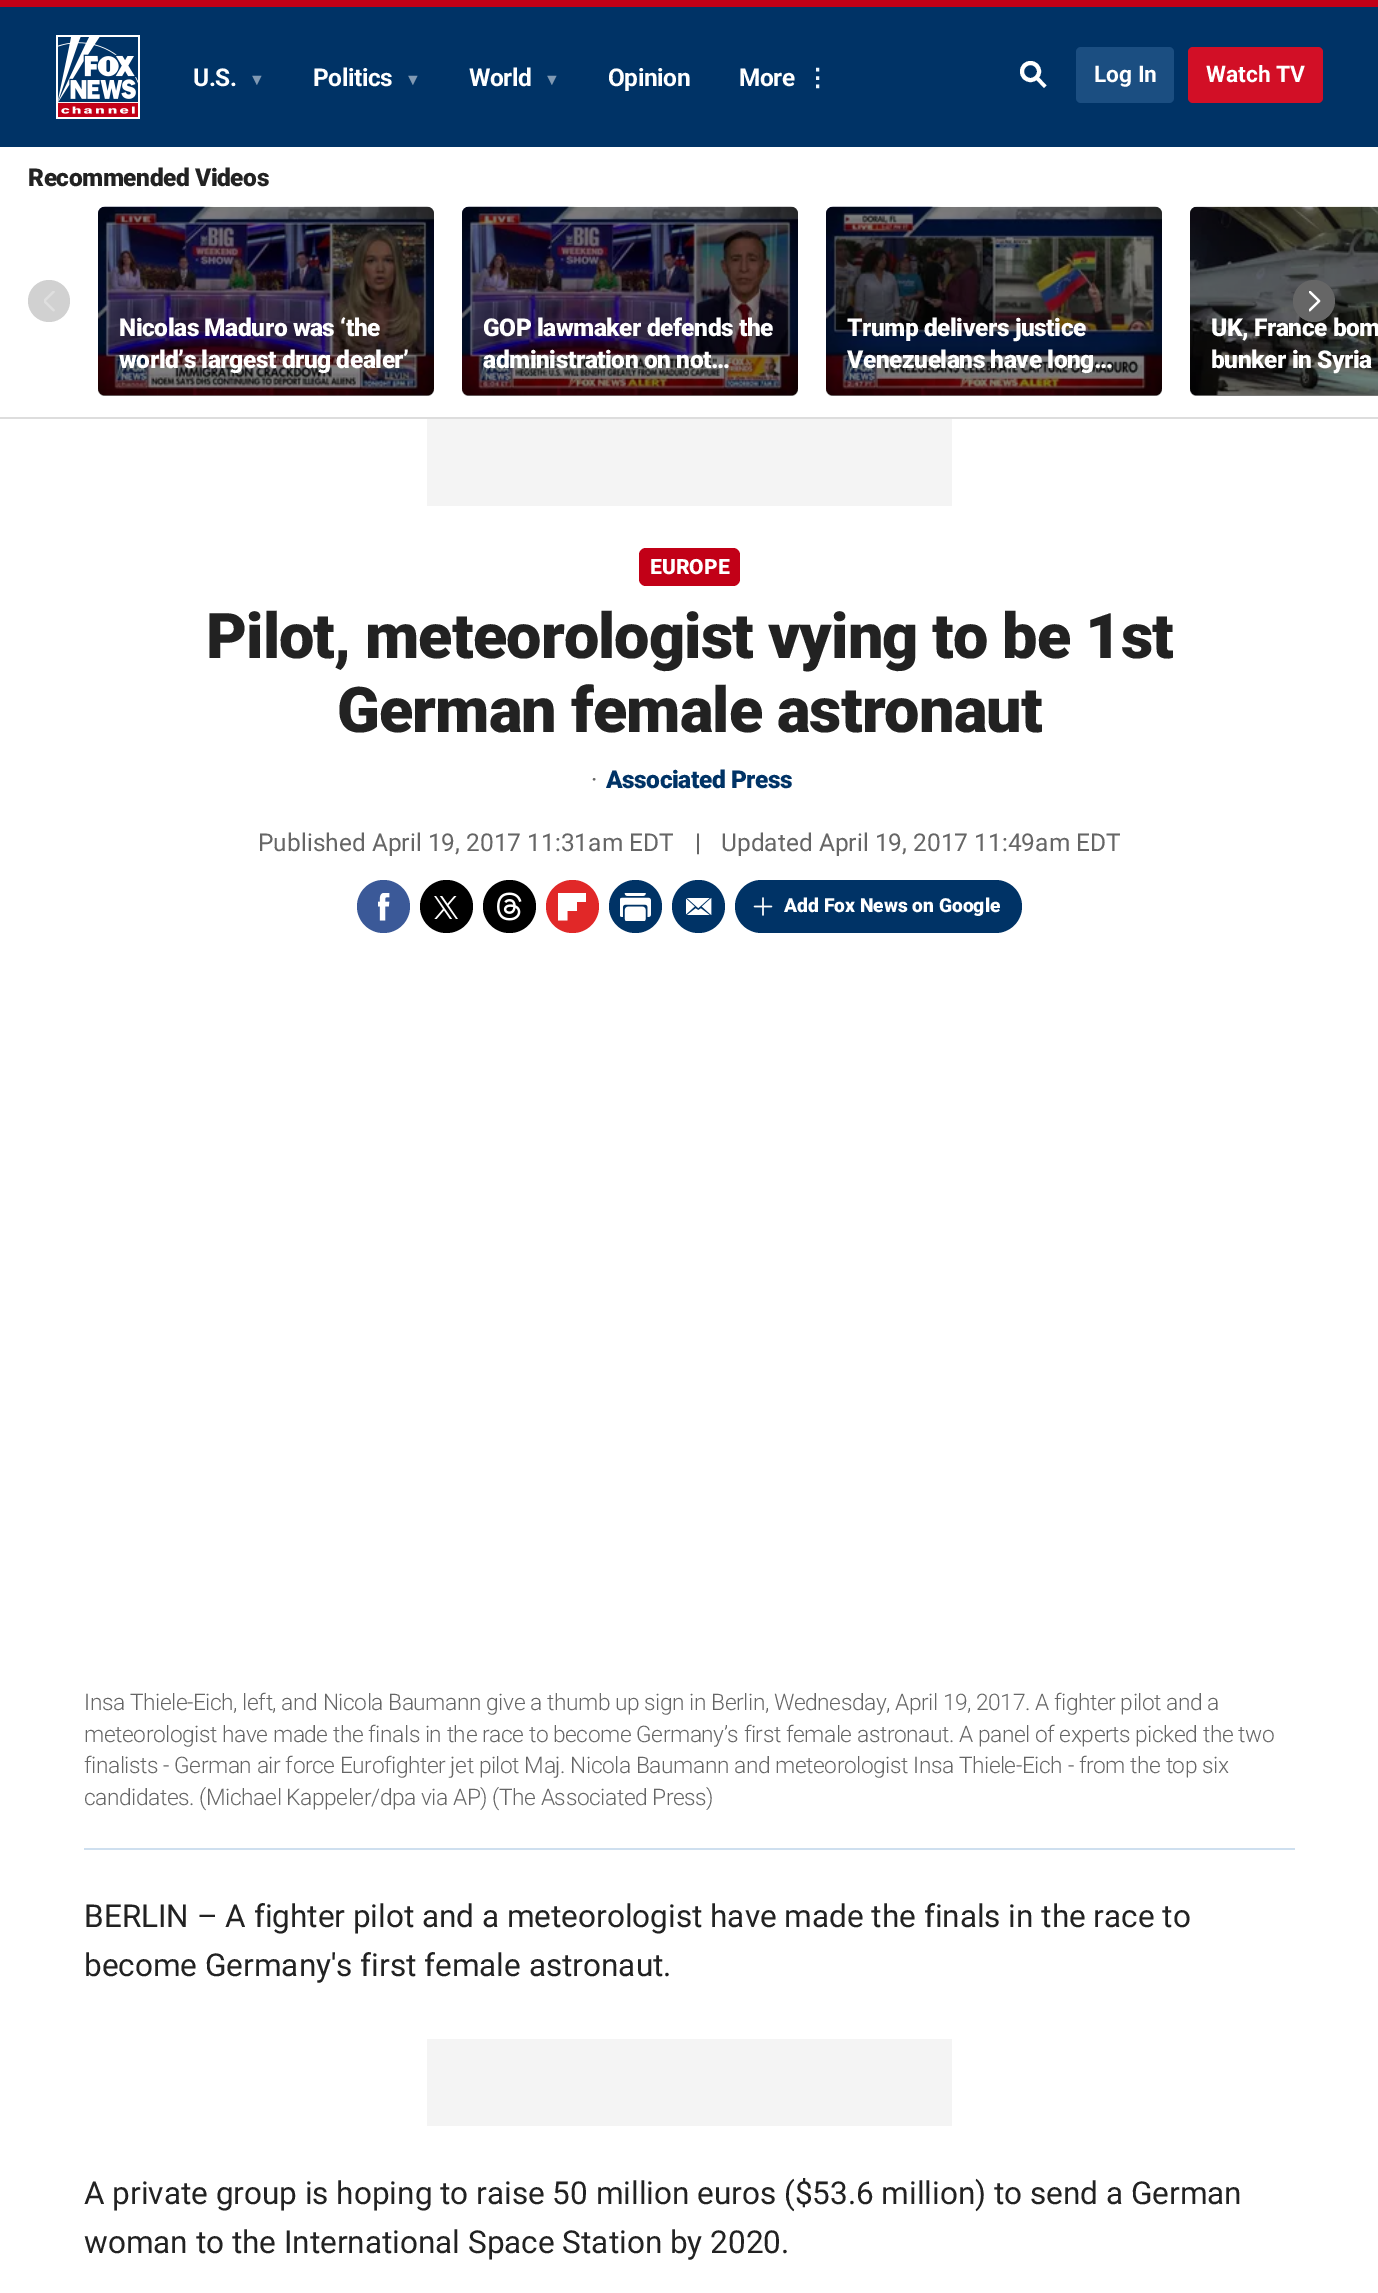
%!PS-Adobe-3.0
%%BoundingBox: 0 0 1378 2293
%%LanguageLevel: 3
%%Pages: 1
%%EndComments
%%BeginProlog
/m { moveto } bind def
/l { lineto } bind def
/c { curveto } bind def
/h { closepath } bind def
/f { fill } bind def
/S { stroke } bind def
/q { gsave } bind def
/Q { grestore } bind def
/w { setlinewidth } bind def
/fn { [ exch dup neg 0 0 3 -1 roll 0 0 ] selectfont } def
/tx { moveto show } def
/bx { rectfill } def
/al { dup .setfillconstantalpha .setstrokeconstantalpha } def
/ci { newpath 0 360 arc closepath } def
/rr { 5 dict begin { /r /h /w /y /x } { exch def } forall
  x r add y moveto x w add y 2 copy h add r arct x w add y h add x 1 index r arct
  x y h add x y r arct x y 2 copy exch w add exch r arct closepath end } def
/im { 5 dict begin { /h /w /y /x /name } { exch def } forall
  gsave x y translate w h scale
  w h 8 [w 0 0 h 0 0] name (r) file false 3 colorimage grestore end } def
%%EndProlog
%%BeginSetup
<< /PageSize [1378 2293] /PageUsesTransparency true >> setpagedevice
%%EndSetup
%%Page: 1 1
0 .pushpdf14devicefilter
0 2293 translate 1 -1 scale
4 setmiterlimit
1 setgray
0 0 1378 2293 bx
0 0.2 0.4 setrgbcolor
0 7 1378 140 bx
0.761 0 0.09 setrgbcolor
0 0 1378 7 bx
1 setgray
56 35 84 84 bx
(image0.raw) 58 37 80 80 im
/Roboto-Bold 24.5 fn
193 86 m -0.44 0 (U.S.) ashow
/LiberationSans-Bold 16 fn
0.502 0.6 0.702 setrgbcolor
249 85 m -0.44 0 (▼) ashow
/Roboto-Bold 24.5 fn
1 setgray
313 86 m -0.44 0 (Politics) ashow
/LiberationSans-Bold 16 fn
0.502 0.6 0.702 setrgbcolor
405 85 m -0.44 0 (▼) ashow
/Roboto-Bold 24.5 fn
1 setgray
469 86 m -0.44 0 (World) ashow
/LiberationSans-Bold 16 fn
0.502 0.6 0.702 setrgbcolor
544 85 m -0.44 0 (▼) ashow
/Roboto-Bold 24.5 fn
1 setgray
608 86 m -0.44 0 (Opinion) ashow
739 86 m -0.44 0 (More) ashow
/DejaVuSans-Bold 24.5 fn
0.929 0.965 1 setrgbcolor
805 86 m -0.44 0 (⋮) ashow
1 setgray
4 w
1030.5 71.5 8.5 ci S
1038 76.5 m 1046.5 85.5 l 1044 88 l 1035.5 79 l h f
0.106 0.306 0.506 setrgbcolor
1076 47 98 56 5 rr f
/Roboto-Bold 22.75 fn
1 setgray
(Log In) 1094 82 tx
0.824 0.059 0.149 setrgbcolor
1188 47 135 56 5 rr f
1 setgray
(Watch TV) 1206 82 tx
0.867 setgray
0 417 1378 2 bx
/Roboto-Black 24.5 fn
0.133 setgray
28 186 m -0.44 0 (Recommended Videos) ashow
0.82 setgray
49 301 21 ci f
(image1.raw) 44 291 11 21 im
0.957 setgray
1197 207 m 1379 207 l 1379 396 l 1197 396 l 1193 396 1190 393 1190 389 c 1190 214 l 1190 210 1193 207 1197 207 c h f
(image6.raw) 1190 206 188 190 im
0.5 al
0 setgray
1197 207 m 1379 207 l 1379 396 l 1197 396 l 1193 396 1190 393 1190 389 c 1190 214 l 1190 210 1193 207 1197 207 c h f
1 al
1 setgray
1211 336 m -0.44 0 (UK, France bom) ashow
0.4 setgray
1314 301 21 ci f
(image2.raw) 1309 291 12 21 im
0.957 setgray
98 207 336 189 7 rr f
(image3.raw) 98 206 336 190 im
0.5 al
0 setgray
98 207 336 189 7 rr f
1 al
1 setgray
119 336 m -0.44 0 (Nicolas Maduro was ‘the) ashow
119 368 m -0.44 0 (world’s largest drug dealer’) ashow
0.957 setgray
462 207 336 189 7 rr f
(image4.raw) 462 206 336 190 im
0.5 al
0 setgray
462 207 336 189 7 rr f
1 al
1 setgray
483 336 m -0.44 0 (GOP lawmaker defends the) ashow
483 368 m -0.44 0 (administration on not…) ashow
0.957 setgray
826 207 336 189 7 rr f
(image5.raw) 826 206 336 190 im
0.5 al
0 setgray
826 207 336 189 7 rr f
1 al
1 setgray
847 336 m -0.44 0 (Trump delivers justice) ashow
847 368 m -0.44 0 (Venezuelans have long…) ashow
1211 368 m -0.44 0 (bunker in Syria) ashow
0.957 setgray
427 419 525 87 bx
0.761 0 0.09 setrgbcolor
639 548 101 38 7 rr f
/Roboto-Black 21 fn
1 setgray
(EUROPE) 650 574 tx
/Roboto-Black 63 fn
0.133 setgray
206 658 m -0.9 0 (Pilot, meteorologist vying to be 1st) ashow
337 732 m -0.9 0 (German female astronaut) ashow
/Roboto-Regular 24.5 fn
0.4 setgray
(·) 591 788 tx
/Roboto-Black 24.5 fn
0 0.2 0.4 setrgbcolor
606 788 m -0.44 0 (Associated Press) ashow
/Roboto-Regular 24.5 fn
0.4 setgray
(Published April 19, 2017 11:31am EDT) 258 851 tx
(|) 695 851 tx
(Updated April 19, 2017 11:49am EDT) 721 851 tx
0.231 0.349 0.596 setrgbcolor
383.5 906.5 26.5 ci f
(image7.raw) 378 893 12 28 im
0 setgray
446.5 906.5 26.5 ci f
(image8.raw) 434 896 24 23 im
509.5 906.5 26.5 ci f
(image9.raw) 497 892 25 29 im
0.882 0.157 0.157 setrgbcolor
572.5 906.5 26.5 ci f
q
558 893 28 28 rectclip
1 setgray
567.5 892.5 m 558 892.5 l 558 920.5 l 567.5 920.5 l 567.5 911 l 577 911 l 577 902 l 586 902 l 586 892.5 l h f
Q
0 0.2 0.4 setrgbcolor
635.5 906.5 26.5 ci f
(image10.raw) 620 893 31 28 im
698.5 906.5 26.5 ci f
(image11.raw) 686 898 26 17 im
735 880 287 53 26.5 rr f
(image12.raw) 753 897 20 19 im
/Roboto-Black 19.25 fn
1 setgray
(Add Fox News on Google) 784 912 tx
0.808 0.875 0.937 setrgbcolor
84 1848 1211 2 bx
/Roboto-Light 22.75 fn
0.4 setgray
84 1710 m -0.44 0 (Insa Thiele-Eich, left, and Nicola Baumann give a thumb up sign in Berlin, Wednesday, April 19, 2017. A fighter pilot and a) ashow
84 1742 m -0.44 0 (meteorologist have made the finals in the race to become Germany’s first female astronaut. A panel of experts picked the two) ashow
84 1773 m -0.44 0 (finalists - German air force Eurofighter jet pilot Maj. Nicola Baumann and meteorologist Insa Thiele-Eich - from the top six) ashow
84 1805 m -0.44 0 (candidates. \(Michael Kappeler/dpa via AP\) \(The Associated Press\)) ashow
/Roboto-Regular 31.5 fn
0.133 setgray
(BERLIN – A fighter pilot and a meteorologist have made the finals in the race to) 84 1927 tx
(become Germany's first female astronaut.) 84 1976 tx
0.957 setgray
427 2039 525 87 bx
0.133 setgray
(A private group is hoping to raise 50 million euros \($53.6 million\) to send a German) 84 2204 tx
(woman to the International Space Station by 2020.) 84 2253 tx
.poppdf14devicefilter showpage
%%EOF
